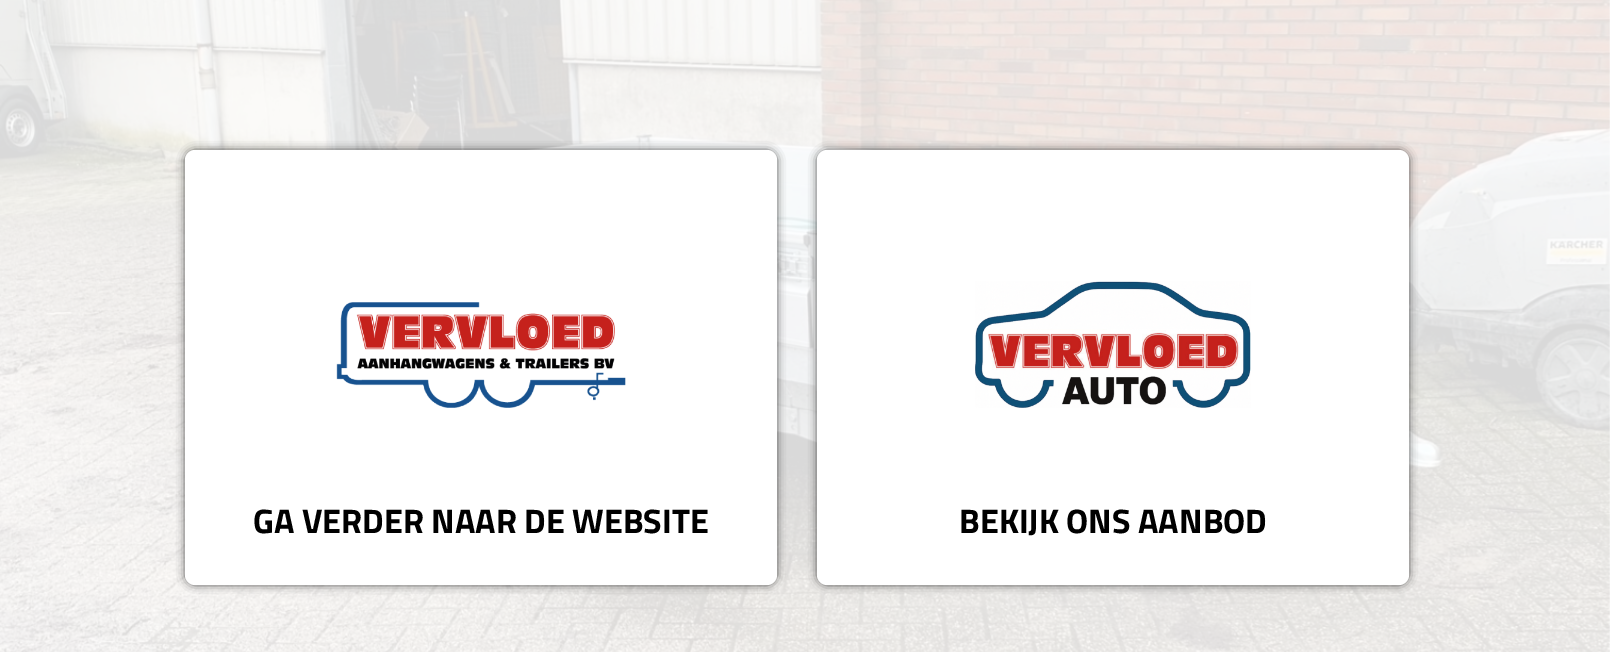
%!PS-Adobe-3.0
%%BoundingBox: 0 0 1610 652
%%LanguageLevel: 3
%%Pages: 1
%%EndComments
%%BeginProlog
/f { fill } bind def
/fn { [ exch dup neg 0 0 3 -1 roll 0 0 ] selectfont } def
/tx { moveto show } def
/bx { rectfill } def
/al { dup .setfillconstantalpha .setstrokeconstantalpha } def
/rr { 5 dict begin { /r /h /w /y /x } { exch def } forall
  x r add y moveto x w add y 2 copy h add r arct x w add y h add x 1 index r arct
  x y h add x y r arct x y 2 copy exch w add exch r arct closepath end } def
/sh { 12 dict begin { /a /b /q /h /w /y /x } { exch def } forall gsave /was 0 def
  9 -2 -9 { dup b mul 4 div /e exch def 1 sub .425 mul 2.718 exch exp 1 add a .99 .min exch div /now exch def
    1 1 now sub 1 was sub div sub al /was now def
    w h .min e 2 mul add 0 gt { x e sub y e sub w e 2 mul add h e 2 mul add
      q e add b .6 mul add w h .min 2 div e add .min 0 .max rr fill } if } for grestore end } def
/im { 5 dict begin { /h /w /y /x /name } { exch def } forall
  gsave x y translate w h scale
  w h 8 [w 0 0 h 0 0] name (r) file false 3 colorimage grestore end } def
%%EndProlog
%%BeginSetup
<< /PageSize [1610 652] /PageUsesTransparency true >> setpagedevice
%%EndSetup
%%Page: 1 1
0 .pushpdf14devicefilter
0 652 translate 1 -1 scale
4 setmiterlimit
1 setgray
0 0 1610 652 bx
(image0.raw) 0 0 1610 652 im
0 setgray
187 152 588 431 8 5 1 sh
1 setgray
185 150 592 435 10 rr f
(image1.raw) 336 302 290 106 im
/TitilliumWeb-Bold 34 fn
0 setgray
(GA VERDER NAAR DE WEBSITE) 253 533 tx
819 152 588 431 8 5 1 sh
1 setgray
817 150 592 435 10 rr f
(image2.raw) 975 281 276 127 im
0 setgray
(BEKIJK ONS AANBOD) 959 533 tx
.poppdf14devicefilter showpage
%%EOF
